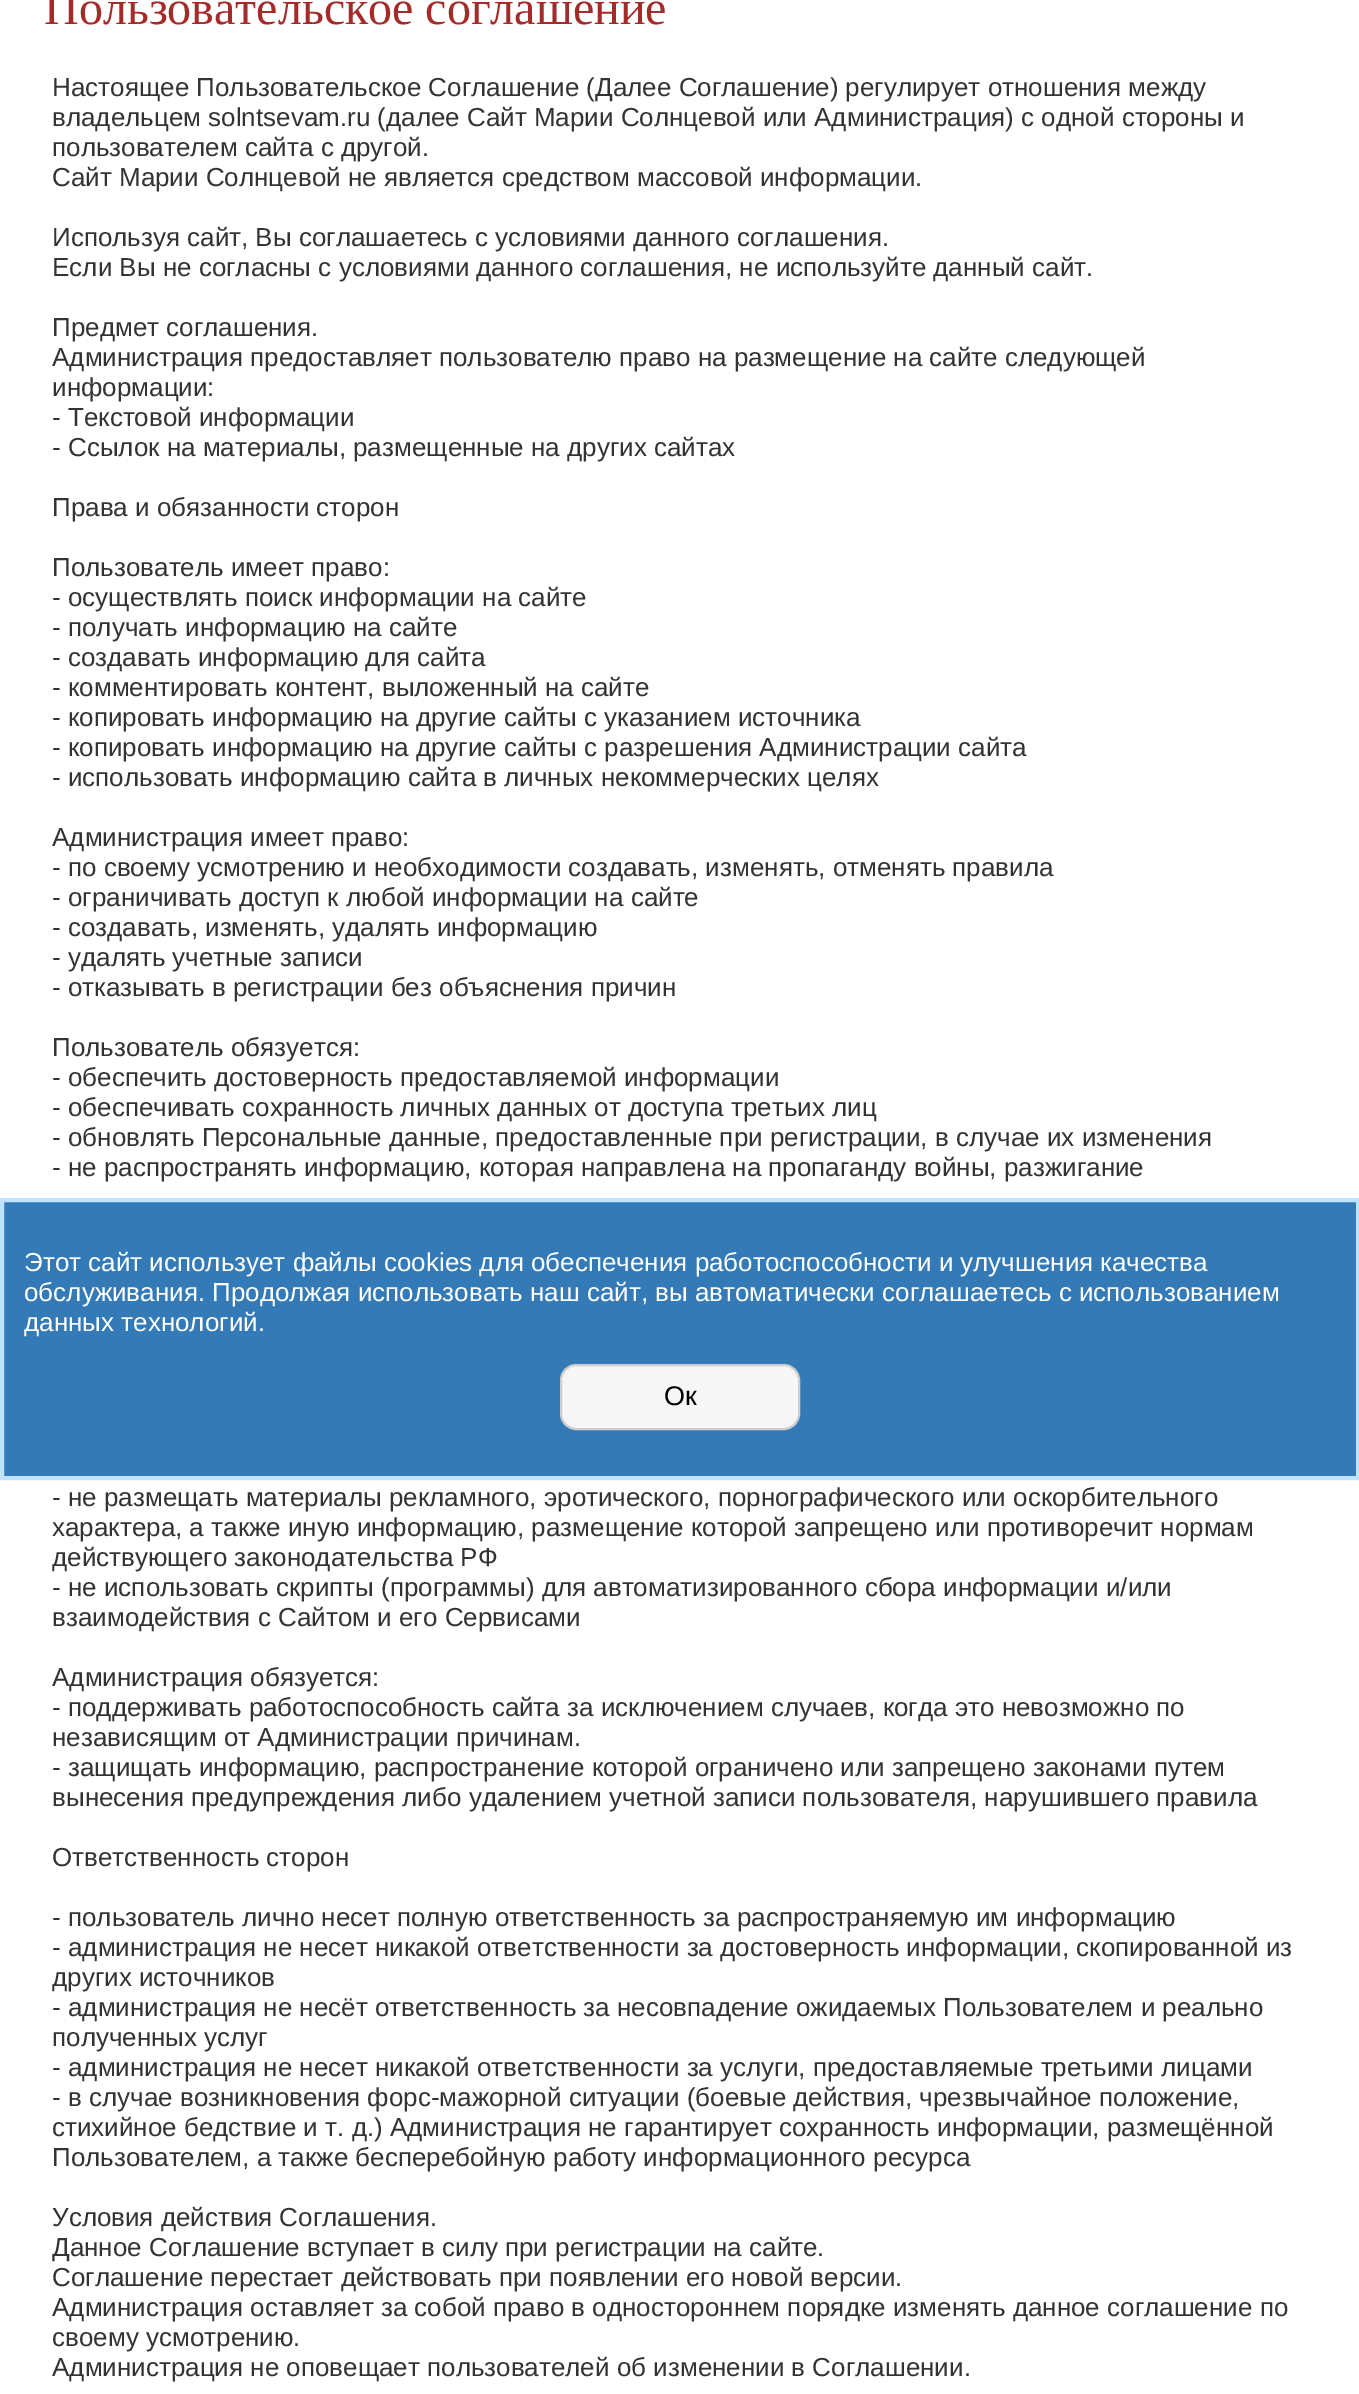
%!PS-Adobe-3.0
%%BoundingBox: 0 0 1359 2394
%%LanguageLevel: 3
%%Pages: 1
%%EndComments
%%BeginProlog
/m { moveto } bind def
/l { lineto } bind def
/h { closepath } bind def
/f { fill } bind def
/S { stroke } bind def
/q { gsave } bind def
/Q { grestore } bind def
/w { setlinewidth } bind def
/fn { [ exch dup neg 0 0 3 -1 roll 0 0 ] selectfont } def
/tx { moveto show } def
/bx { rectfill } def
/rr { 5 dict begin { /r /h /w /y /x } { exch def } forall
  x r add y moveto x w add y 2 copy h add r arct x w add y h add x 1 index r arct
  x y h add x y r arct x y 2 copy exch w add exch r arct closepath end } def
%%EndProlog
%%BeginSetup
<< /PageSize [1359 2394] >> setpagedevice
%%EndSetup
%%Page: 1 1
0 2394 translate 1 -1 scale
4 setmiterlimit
1 setgray
0 0 1359 2394 bx
/LiberationSerif-Regular 48 fn
0.647 0.165 0.165 setrgbcolor
(Пользовательское соглашение) 44 24 tx
/LiberationSans-Regular 26 fn
0.2 setgray
(Настоящее Пользовательское Соглашение \(Далее Соглашение\) регулирует отношения между) 52 96 tx
(владельцем solntsevam.ru \(далее Сайт Марии Солнцевой или Администрация\) с одной стороны и) 52 126 tx
(пользователем сайта с другой.) 52 156 tx
(Сайт Марии Солнцевой не является средством массовой информации.) 52 186 tx
(Используя сайт, Вы соглашаетесь с условиями данного соглашения.) 52 246 tx
(Если Вы не согласны с условиями данного соглашения, не используйте данный сайт.) 52 276 tx
(Предмет соглашения.) 52 336 tx
(Администрация предоставляет пользователю право на размещение на сайте следующей) 52 366 tx
(информации:) 52 396 tx
(- Текстовой информации) 52 426 tx
(- Ссылок на материалы, размещенные на других сайтах) 52 456 tx
(Права и обязанности сторон) 52 516 tx
(Пользователь имеет право:) 52 576 tx
(- осуществлять поиск информации на сайте) 52 606 tx
(- получать информацию на сайте) 52 636 tx
(- создавать информацию для сайта) 52 666 tx
(- комментировать контент, выложенный на сайте) 52 696 tx
(- копировать информацию на другие сайты с указанием источника) 52 726 tx
(- копировать информацию на другие сайты с разрешения Администрации сайта) 52 756 tx
(- использовать информацию сайта в личных некоммерческих целях) 52 786 tx
(Администрация имеет право:) 52 846 tx
(- по своему усмотрению и необходимости создавать, изменять, отменять правила) 52 876 tx
(- ограничивать доступ к любой информации на сайте) 52 906 tx
(- создавать, изменять, удалять информацию) 52 936 tx
(- удалять учетные записи) 52 966 tx
(- отказывать в регистрации без объяснения причин) 52 996 tx
(Пользователь обязуется:) 52 1056 tx
(- обеспечить достоверность предоставляемой информации) 52 1086 tx
(- обеспечивать сохранность личных данных от доступа третьих лиц) 52 1116 tx
(- обновлять Персональные данные, предоставленные при регистрации, в случае их изменения) 52 1146 tx
(- не распространять информацию, которая направлена на пропаганду войны, разжигание) 52 1176 tx
(- не размещать материалы рекламного, эротического, порнографического или оскорбительного) 52 1506 tx
(характера, а также иную информацию, размещение которой запрещено или противоречит нормам) 52 1536 tx
(действующего законодательства РФ) 52 1566 tx
(- не использовать скрипты \(программы\) для автоматизированного сбора информации и/или) 52 1596 tx
(взаимодействия с Сайтом и его Сервисами) 52 1626 tx
(Администрация обязуется:) 52 1686 tx
(- поддерживать работоспособность сайта за исключением случаев, когда это невозможно по) 52 1716 tx
(независящим от Администрации причинам.) 52 1746 tx
(- защищать информацию, распространение которой ограничено или запрещено законами путем) 52 1776 tx
(вынесения предупреждения либо удалением учетной записи пользователя, нарушившего правила) 52 1806 tx
(Ответственность сторон) 52 1866 tx
(- пользователь лично несет полную ответственность за распространяемую им информацию) 52 1926 tx
(- администрация не несет никакой ответственности за достоверность информации, скопированной из) 52 1956 tx
(других источников) 52 1986 tx
(- администрация не несёт ответственность за несовпадение ожидаемых Пользователем и реально) 52 2016 tx
(полученных услуг) 52 2046 tx
(- администрация не несет никакой ответственности за услуги, предоставляемые третьими лицами) 52 2076 tx
(- в случае возникновения форс-мажорной ситуации \(боевые действия, чрезвычайное положение,) 52 2106 tx
(стихийное бедствие и т. д.\) Администрация не гарантирует сохранность информации, размещённой) 52 2136 tx
(Пользователем, а также бесперебойную работу информационного ресурса) 52 2166 tx
(Условия действия Соглашения.) 52 2226 tx
(Данное Соглашение вступает в силу при регистрации на сайте.) 52 2256 tx
(Соглашение перестает действовать при появлении его новой версии.) 52 2286 tx
(Администрация оставляет за собой право в одностороннем порядке изменять данное соглашение по) 52 2316 tx
(своему усмотрению.) 52 2346 tx
(Администрация не оповещает пользователей об изменении в Соглашении.) 52 2376 tx
0.2 0.478 0.718 setrgbcolor
2 1200 m 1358 1200 l 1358 1478 l 2 1478 l h q f Q
0.749 0.886 1 setrgbcolor
4 w
S
1 setgray
(Этот сайт использует файлы cookies для обеспечения работоспособности и улучшения качества) 24 1271 tx
(обслуживания. Продолжая использовать наш сайт, вы автоматически соглашаетесь с использованием) 24 1301 tx
(данных технологий.) 24 1331 tx
0.965 setgray
561 1365 238 64 15 rr q f Q
0.808 setgray
2 w
S
/LiberationSans-Regular 27 fn
0 setgray
(Ок) 664 1405 tx
showpage
%%EOF
